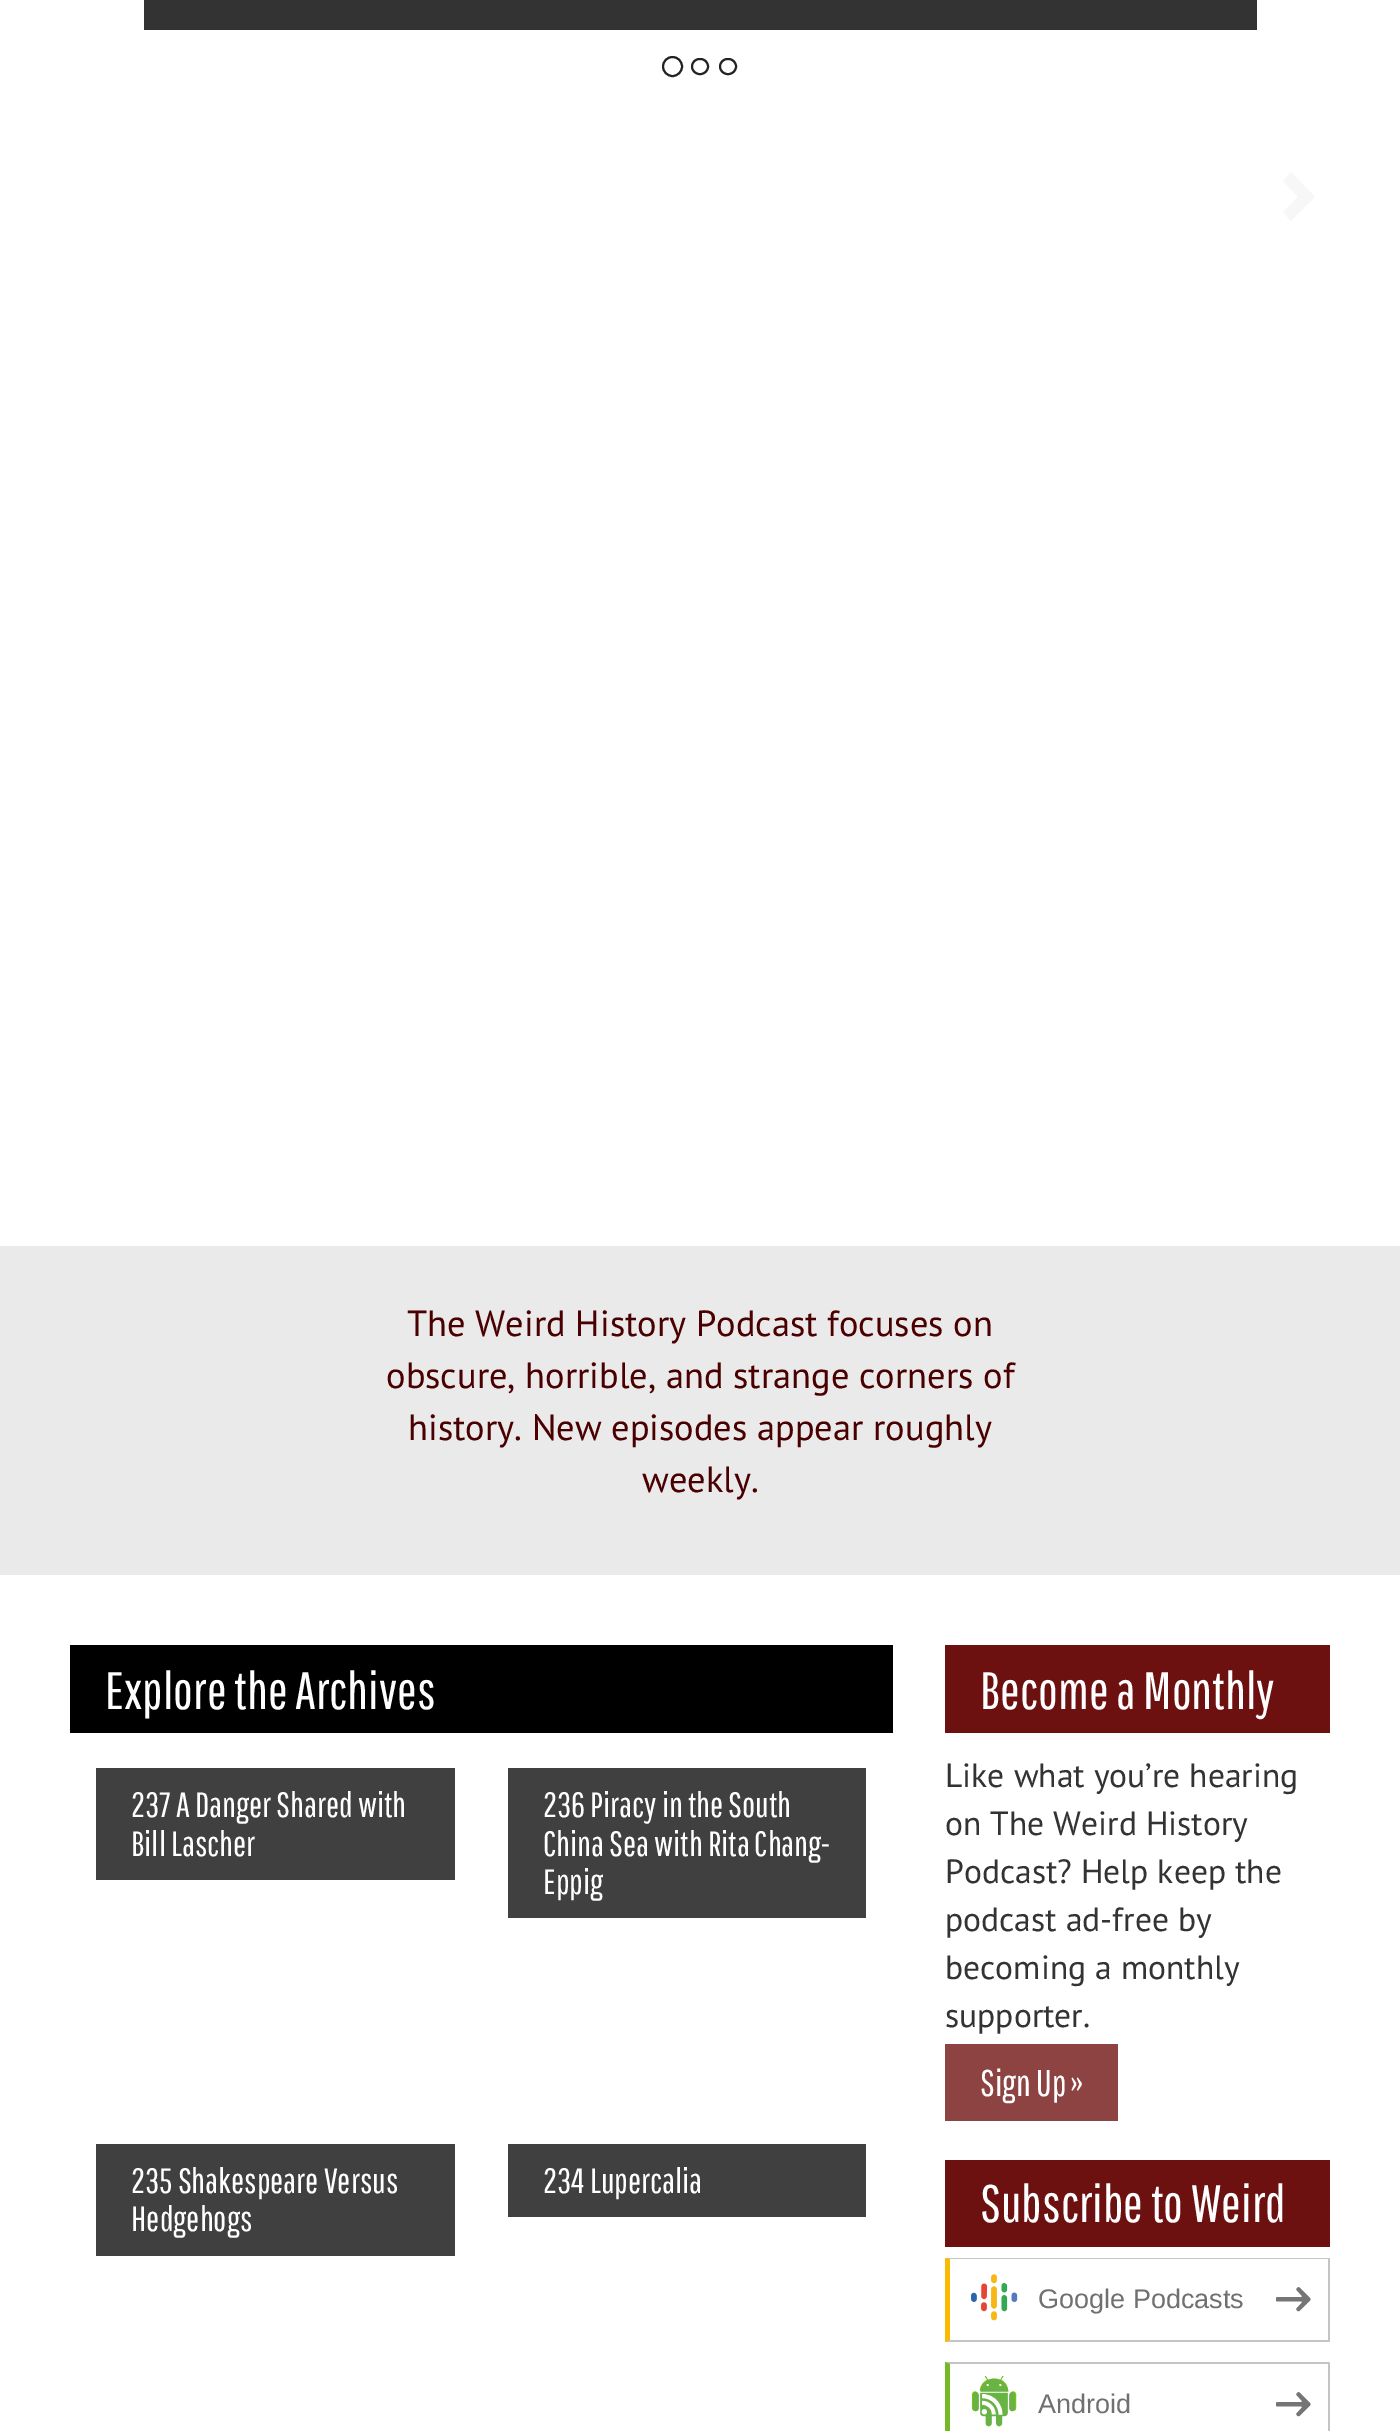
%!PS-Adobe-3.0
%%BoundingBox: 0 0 1400 2431
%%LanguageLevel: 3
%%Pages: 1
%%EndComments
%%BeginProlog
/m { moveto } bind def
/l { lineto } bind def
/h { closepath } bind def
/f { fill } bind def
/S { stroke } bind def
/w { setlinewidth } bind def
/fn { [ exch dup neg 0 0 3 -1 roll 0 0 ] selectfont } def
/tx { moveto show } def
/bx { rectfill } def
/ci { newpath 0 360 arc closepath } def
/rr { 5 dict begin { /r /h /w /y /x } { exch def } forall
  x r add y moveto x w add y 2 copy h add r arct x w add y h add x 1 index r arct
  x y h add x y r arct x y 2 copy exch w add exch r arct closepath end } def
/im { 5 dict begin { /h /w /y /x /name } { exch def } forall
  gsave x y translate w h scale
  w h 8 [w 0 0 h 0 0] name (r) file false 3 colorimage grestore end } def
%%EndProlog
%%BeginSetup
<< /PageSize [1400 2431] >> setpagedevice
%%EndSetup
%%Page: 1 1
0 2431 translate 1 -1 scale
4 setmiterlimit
1 setgray
0 0 1400 2431 bx
0.2 setgray
144 0 1113 30 bx
0.133 setgray
2 w
672.5 66.5 9.5 ci S
692 59 16 15 7.5 rr S
720 59 16 15 7.5 rr S
0.969 setgray
1315 197 m 1291 221 l 1283 212 l 1298 197 l 1283 181 l 1291 172 l h f
0.918 setgray
0 1246 1400 329 bx
/PTSans-Regular 36.4 fn
0.29 0 0 setrgbcolor
(The Weird History Podcast focuses on) 407 1336 tx
(obscure, horrible, and strange corners of) 386 1388 tx
(history. New episodes appear roughly) 408 1440 tx
(weekly.) 642 1492 tx
0 setgray
70 1645 823 88 bx
/PathwayGothicOne-Regular 52.5 fn
1 setgray
(Explore the Archives) 105 1709 tx
0.251 setgray
96 1768 359 112 bx
/PathwayGothicOne-Regular 35 fn
1 setgray
(237 A Danger Shared with) 131 1817 tx
(Bill Lascher) 131 1856 tx
0.251 setgray
508 1768 358 150 bx
1 setgray
(236 Piracy in the South) 543 1817 tx
(China Sea with Rita Chang-) 543 1856 tx
(Eppig) 543 1894 tx
0.251 setgray
96 2144 359 112 bx
1 setgray
(235 Shakespeare Versus) 131 2193 tx
(Hedgehogs) 131 2231 tx
0.251 setgray
508 2144 358 73 bx
1 setgray
(234 Lupercalia) 543 2193 tx
0.424 0.063 0.063 setrgbcolor
945 1645 385 88 bx
/PathwayGothicOne-Regular 52.5 fn
1 setgray
(Become a Monthly) 980 1709 tx
/PTSans-Regular 33.6 fn
0.2 setgray
(Like what you’re hearing) 945 1787 tx
(on The Weird History) 945 1835 tx
(Podcast? Help keep the) 945 1883 tx
(podcast ad-free by) 945 1931 tx
(becoming a monthly) 945 1979 tx
(supporter.) 945 2027 tx
0.557 0.263 0.263 setrgbcolor
945 2044 173 77 bx
/PathwayGothicOne-Regular 37 fn
1 setgray
(Sign Up ») 980 2096 tx
0.424 0.063 0.063 setrgbcolor
945 2160 385 87 bx
/PathwayGothicOne-Regular 52.5 fn
1 setgray
(Subscribe to Weird) 980 2222 tx
0.769 setgray
945 2258 m 1330 2258 l 1328 2259 l 950 2259 l h f
1328 2258 2 84 bx
1330 2342 m 945 2342 l 950 2340 l 1328 2340 l h f
0.976 0.729 0.004 setrgbcolor
945 2342 m 945 2258 l 950 2259 l 950 2340 l h f
(image0.raw) 971 2274 47 47 im
/LiberationSans-Regular 27 fn
0.439 setgray
(Google Podcasts) 1038 2308 tx
(image1.raw) 1276 2287 35 25 im
0.769 setgray
945 2362 m 1330 2362 l 1328 2364 l 950 2364 l h f
1328 2363 2 68 bx
0.459 0.729 0.149 setrgbcolor
945 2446 m 945 2362 l 950 2364 l 950 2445 l h f
(image2.raw) 971 2375 46 52 im
0.439 setgray
(Android) 1038 2413 tx
(image1.raw) 1276 2392 35 25 im
showpage
%%EOF
